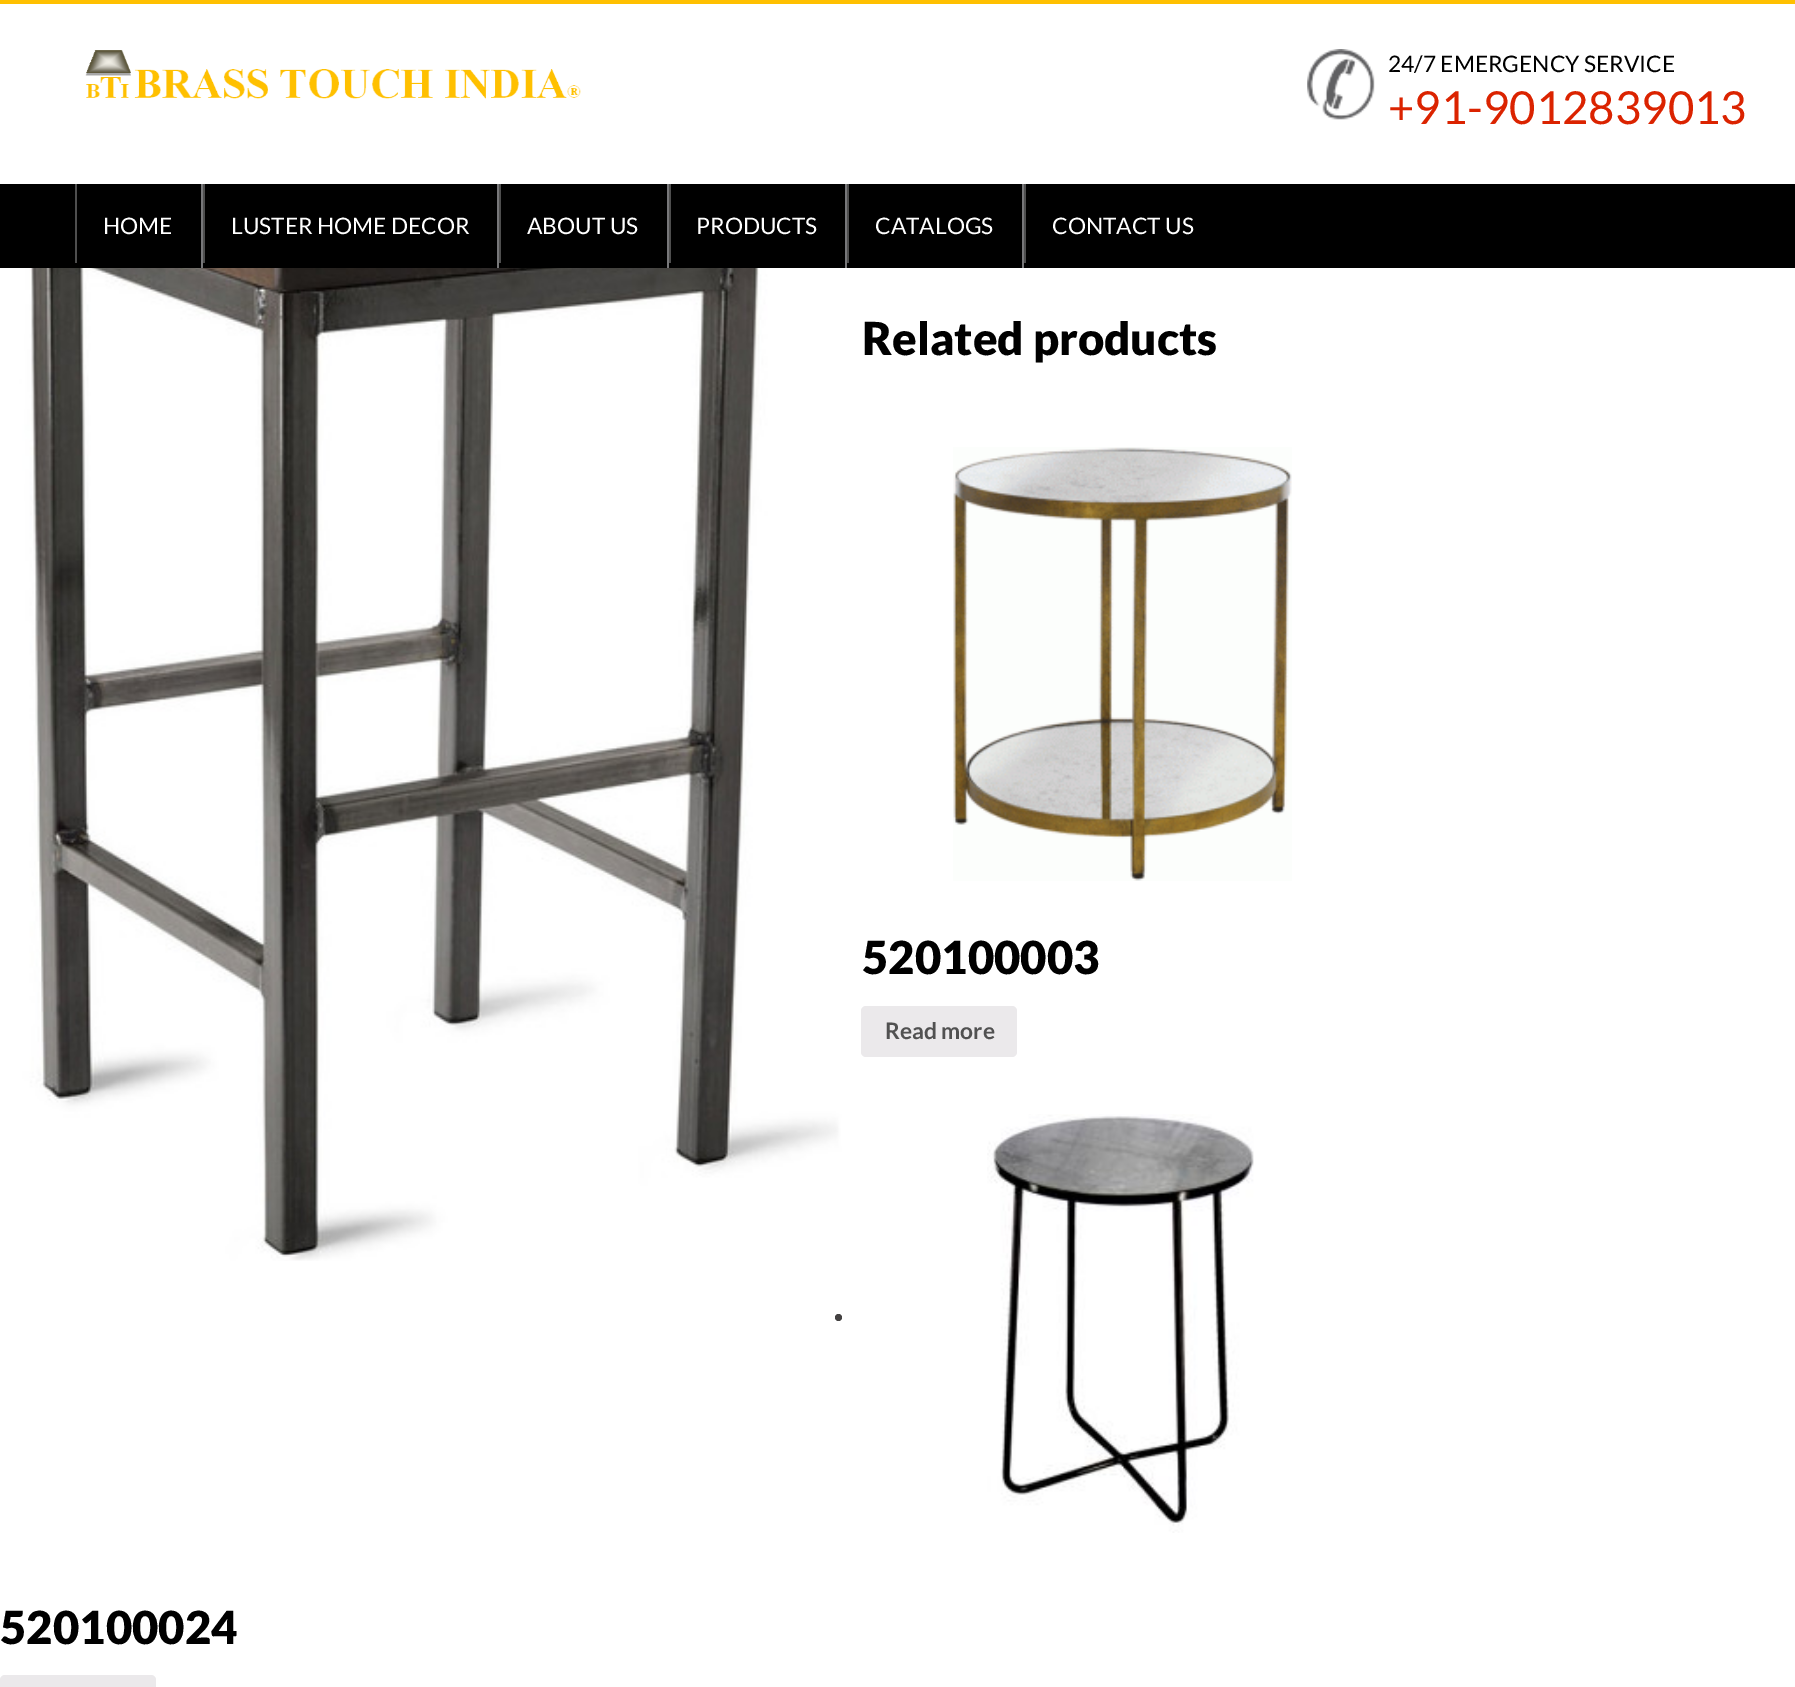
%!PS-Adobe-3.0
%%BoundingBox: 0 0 1795 1687
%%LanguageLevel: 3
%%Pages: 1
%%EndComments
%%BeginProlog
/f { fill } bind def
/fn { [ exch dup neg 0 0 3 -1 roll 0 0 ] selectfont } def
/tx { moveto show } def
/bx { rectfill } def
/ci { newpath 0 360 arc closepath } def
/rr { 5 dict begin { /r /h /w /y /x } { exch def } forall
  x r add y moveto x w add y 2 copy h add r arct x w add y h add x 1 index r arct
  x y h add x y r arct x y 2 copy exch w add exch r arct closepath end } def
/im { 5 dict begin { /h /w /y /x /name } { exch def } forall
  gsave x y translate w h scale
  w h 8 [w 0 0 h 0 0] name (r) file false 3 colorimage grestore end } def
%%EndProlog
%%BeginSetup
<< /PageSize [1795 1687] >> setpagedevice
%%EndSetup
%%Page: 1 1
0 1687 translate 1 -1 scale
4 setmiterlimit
1 setgray
0 0 1795 1687 bx
1 0.753 0 setrgbcolor
0 0 1795 4 bx
(image0.raw) 85 50 496 49 im
(image1.raw) 1307 49 68 71 im
/Lato-Regular 22.75 fn
0 setgray
(24/7 EMERGENCY SERVICE) 1388 72 tx
/Lato-Regular 45.5 fn
0.859 0.137 0 setrgbcolor
(+91-9012839013) 1388 124 tx
0 setgray
0 184 1795 84 bx
0.467 0.467 0.475 setrgbcolor
201 184 2 84 bx
0.306 setgray
75 184 2 79 bx
/Lato-Regular 22.75 fn
1 setgray
(HOME) 103 234 tx
0.467 0.467 0.475 setrgbcolor
497 184 2 84 bx
0.306 setgray
203 184 2 79 bx
1 setgray
(LUSTER HOME DECOR) 231 234 tx
0.467 0.467 0.475 setrgbcolor
667 184 2 84 bx
0.306 setgray
499 184 2 79 bx
1 setgray
(ABOUT US) 527 234 tx
0.467 0.467 0.475 setrgbcolor
845 184 2 84 bx
0.306 setgray
669 184 2 79 bx
1 setgray
(PRODUCTS) 696 234 tx
0.467 0.467 0.475 setrgbcolor
1022 184 2 84 bx
0.306 setgray
847 184 2 79 bx
1 setgray
(CATALOGS) 875 234 tx
0.306 setgray
1024 184 2 79 bx
1 setgray
(CONTACT US) 1052 234 tx
(image2.raw) 19 268 823 993 im
/Lato-Black 45.5 fn
0 setgray
(Related products) 862 355 tx
(image3.raw) 953 447 339 434 im
(520100003) 862 974 tx
0.922 0.914 0.922 setrgbcolor
861 1006 156 51 5 rr f
/Lato-Bold 22.75 fn
0.318 setgray
(Read more) 885 1039 tx
0.267 0.259 0.259 setrgbcolor
838.5 1317.5 3.5 ci f
(image4.raw) 987 1114 267 419 im
/Lato-Black 45.5 fn
0 setgray
(520100024) 0 1644 tx
0.922 0.914 0.922 setrgbcolor
0 1675 156 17 5 rr f
showpage
%%EOF
